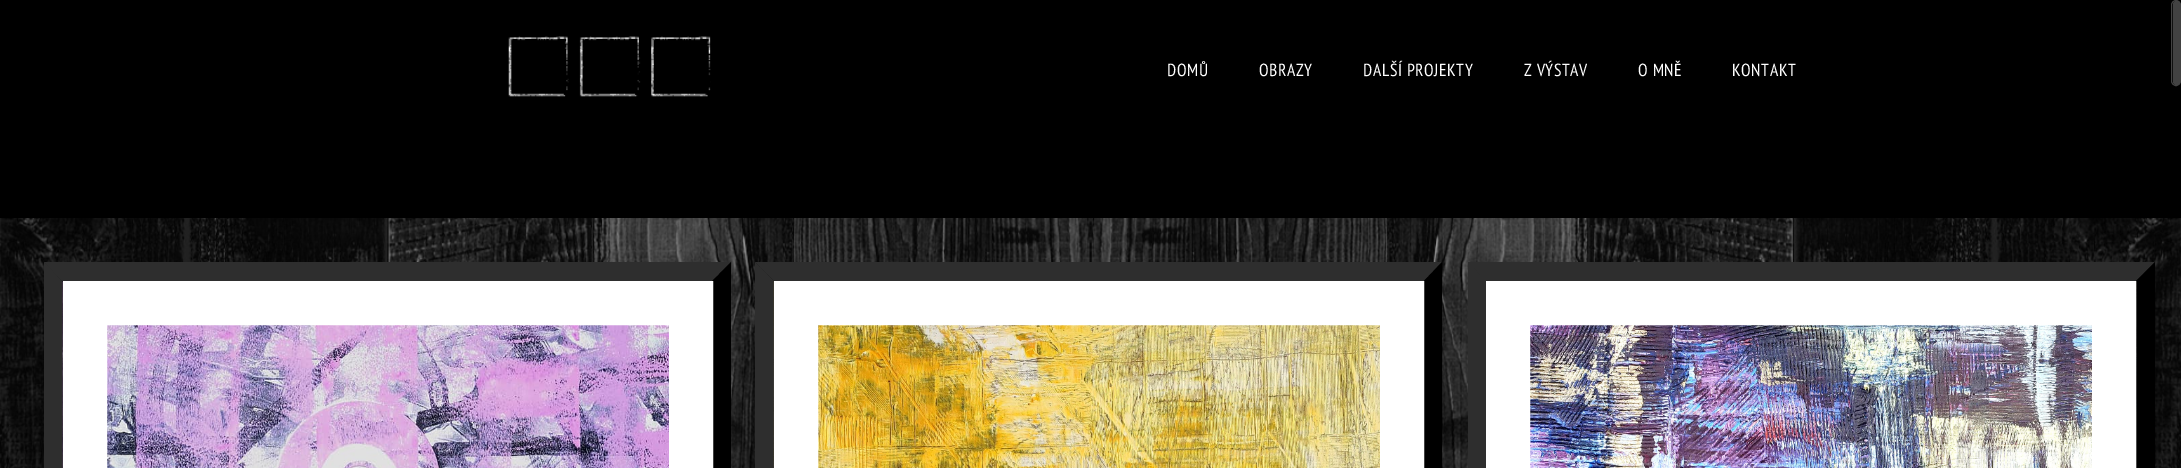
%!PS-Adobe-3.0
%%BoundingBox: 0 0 2181 468
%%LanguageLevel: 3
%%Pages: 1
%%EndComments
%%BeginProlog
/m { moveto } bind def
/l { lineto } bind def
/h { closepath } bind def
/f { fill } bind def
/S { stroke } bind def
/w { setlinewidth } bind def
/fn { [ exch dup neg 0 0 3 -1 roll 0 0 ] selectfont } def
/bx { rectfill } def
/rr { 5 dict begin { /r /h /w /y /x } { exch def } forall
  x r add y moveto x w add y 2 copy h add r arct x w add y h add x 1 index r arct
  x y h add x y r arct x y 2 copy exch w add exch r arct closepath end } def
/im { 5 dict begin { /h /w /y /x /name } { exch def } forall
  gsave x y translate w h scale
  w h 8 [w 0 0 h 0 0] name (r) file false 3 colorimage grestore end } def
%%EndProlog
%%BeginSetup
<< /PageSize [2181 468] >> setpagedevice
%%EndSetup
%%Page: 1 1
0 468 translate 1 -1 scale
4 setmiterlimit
0 setgray
0 0 2181 468 bx
(image0.raw) 508 36 203 61 im
/PTSansNarrow-Regular 17.5 fn
1 setgray
1167 76 m 0.6 0 (DOMŮ) ashow
1259 76 m 0.6 0 (OBRAZY) ashow
1363 76 m 0.6 0 (DALŠÍ PROJEKTY) ashow
1524 76 m 0.6 0 (Z VÝSTAV) ashow
1638 76 m 0.6 0 (O MNĚ) ashow
1732 76 m 0.6 0 (KONTAKT) ashow
(image1.raw) 0 218 2181 250 im
0.18 setgray
44 262 m 731 262 l 712 281 l 62 281 l h f
0 setgray
731 262 m 731 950 l 712 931 l 712 281 l h f
0.18 setgray
44 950 m 44 262 l 62 281 l 62 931 l h f
(image2.raw) 62 281 607 187 im
1 setgray
44 w
85 303 606 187 rectstroke
0.18 setgray
755 262 m 1442 262 l 1424 281 l 774 281 l h f
0 setgray
1442 262 m 1442 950 l 1424 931 l 1424 281 l h f
0.18 setgray
755 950 m 755 262 l 774 281 l 774 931 l h f
(image3.raw) 773 281 607 187 im
1 setgray
796 303 606 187 rectstroke
0.18 setgray
1468 262 m 2155 262 l 2136 281 l 1486 281 l h f
0 setgray
2155 262 m 2155 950 l 2136 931 l 2136 281 l h f
0.18 setgray
1468 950 m 1468 262 l 1486 281 l 1486 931 l h f
(image4.raw) 1530 281 607 187 im
1 setgray
1508 303 606 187 rectstroke
0.259 setgray
2173 1 7 84 3.5 rr f
1 w
2171.5 0.5 9 85 4.5 rr S
showpage
%%EOF
